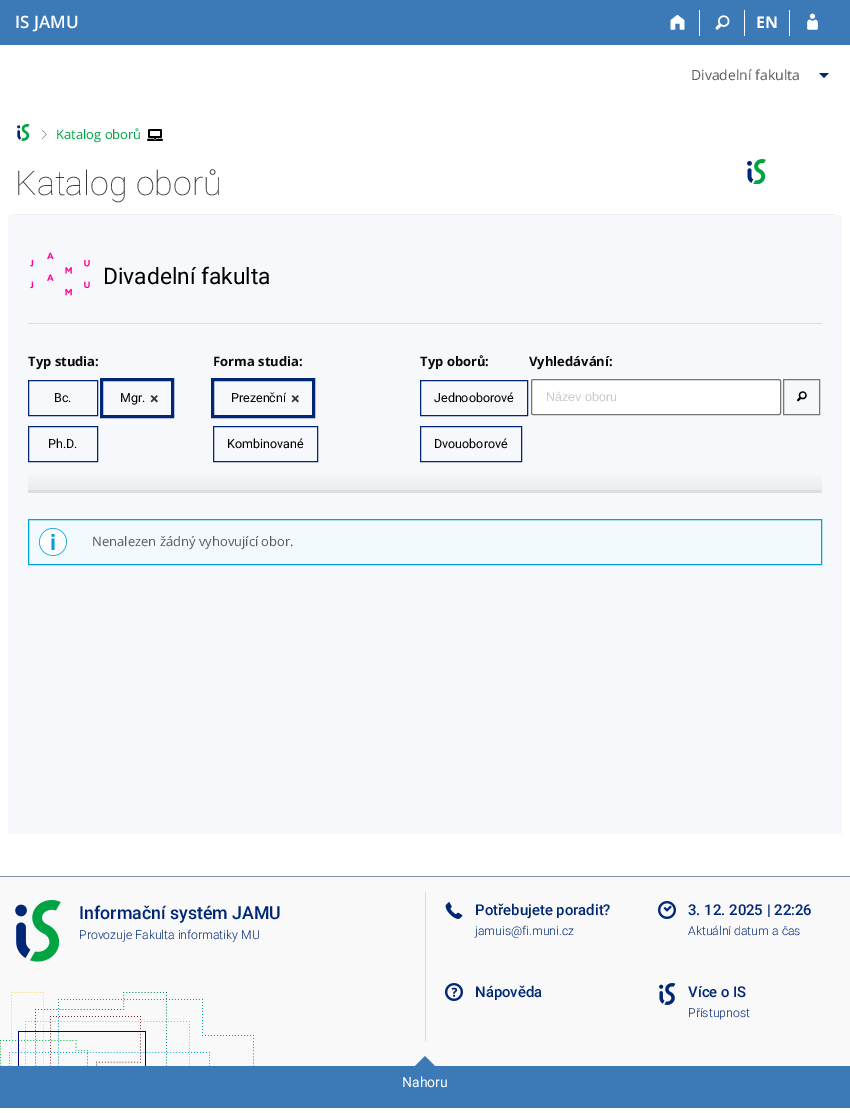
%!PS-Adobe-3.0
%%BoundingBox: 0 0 850 1113
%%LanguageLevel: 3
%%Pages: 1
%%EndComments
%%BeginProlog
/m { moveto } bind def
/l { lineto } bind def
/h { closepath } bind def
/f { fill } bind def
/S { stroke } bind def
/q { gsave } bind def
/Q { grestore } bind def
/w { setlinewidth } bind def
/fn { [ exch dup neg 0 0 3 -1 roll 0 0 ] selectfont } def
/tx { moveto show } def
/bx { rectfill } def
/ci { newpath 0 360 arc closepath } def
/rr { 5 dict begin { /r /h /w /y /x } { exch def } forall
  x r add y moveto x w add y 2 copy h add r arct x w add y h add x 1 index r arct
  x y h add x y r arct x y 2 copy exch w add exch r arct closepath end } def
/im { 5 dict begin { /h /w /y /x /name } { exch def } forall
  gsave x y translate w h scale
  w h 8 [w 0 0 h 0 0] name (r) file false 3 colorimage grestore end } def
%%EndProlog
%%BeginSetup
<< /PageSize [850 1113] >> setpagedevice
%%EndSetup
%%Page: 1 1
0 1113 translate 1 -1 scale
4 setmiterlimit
1 setgray
0 0 850 1113 bx
0.235 0.478 0.718 setrgbcolor
0 0 850 45 bx
/OpenSans-SemiBold 17 fn
1 setgray
(IS JAMU) 15 28 tx
699 10 1 26 bx
(image0.raw) 670 14 15 16 im
744 10 1 26 bx
(image1.raw) 715 15 15 15 im
789 10 1 26 bx
/OpenSans-Bold 16 fn
(EN) 756 28 tx
(image2.raw) 807 13 11 17 im
/OpenSans-Regular 14 fn
0.353 setgray
(Divadelní fakulta) 691 80 tx
0 0.153 0.463 setrgbcolor
819 73 m 829 73 l 824 78 l h f
(image3.raw) 17 124 13 17 im
(image4.raw) 41 130 6 9 im
/OpenSans-Regular 13 fn
0 0.643 0.259 setrgbcolor
(Katalog oborů) 56 139 tx
(image5.raw) 147 129 16 12 im
/Roboto-Thin 34 fn
0.227 setgray
(Katalog oborů) 15 195 tx
(image6.raw) 747 159 19 25 im
0.918 setgray
15 214 820 1 bx
0.969 0.973 0.988 setrgbcolor
8 215 834 619 bx
(image7.raw) 30 252 60 44 im
/Roboto-Regular 22.75 fn
0 setgray
(Divadelní fakulta) 103 284 tx
q 28 474 m 822 474 l 822 490 l 28 490 l h clip newpath
<< /ShadingType 2 /ColorSpace /DeviceRGB /Coords [425 490 425 324] /Extend [true true] /Function << /FunctionType 3 /Domain [0 1] /Functions [<< /FunctionType 2 /Domain [0 1] /C0 [0.925 0.929 0.941] /C1 [0.969 0.973 0.988] /N 1 >> << /FunctionType 2 /Domain [0 1] /C0 [0.969 0.973 0.988] /C1 [0.969 0.973 0.988] /N 1 >>] /Bounds [0.12] /Encode [0 1 0 1] >> >> shfill Q
0.867 setgray
28 323 794 1 bx
28 490 794 3 bx
/OpenSans-Bold 13 fn
0.039 setgray
(Typ studia:) 28 366 tx
0 0.153 0.463 setrgbcolor
28.5 380.5 69 35 rectstroke
/Roboto-Regular 12.5 fn
0 setgray
(Bc.) 54 402 tx
0 0.153 0.463 setrgbcolor
102.5 380.5 69 35 rectstroke
2 w
101 379 72 38 rectstroke
0 setgray
(Mgr.) 120 402 tx
/Roboto-Bold 16 fn
0.2 setgray
(×) 150 404 tx
0 0.153 0.463 setrgbcolor
1 w
28.5 426.5 69 35 rectstroke
/Roboto-Regular 12.5 fn
0 setgray
(Ph.D.) 48 448 tx
/OpenSans-Bold 13 fn
0.039 setgray
(Forma studia:) 213 366 tx
0 0.153 0.463 setrgbcolor
213.5 380.5 99 35 rectstroke
2 w
212 379 102 38 rectstroke
/Roboto-Regular 12.5 fn
0 setgray
(Prezenční) 231 402 tx
/Roboto-Bold 16 fn
0.2 setgray
(×) 291 404 tx
0 0.153 0.463 setrgbcolor
1 w
213.5 426.5 104 35 rectstroke
/Roboto-Regular 12.5 fn
0 setgray
(Kombinované) 227 448 tx
/OpenSans-Bold 13 fn
0.039 setgray
(Typ oborů:) 420 366 tx
0 0.153 0.463 setrgbcolor
420.5 380.5 107 35 rectstroke
/Roboto-Regular 12.5 fn
0 setgray
(Jednooborové) 434 402 tx
0 0.153 0.463 setrgbcolor
420.5 426.5 101 35 rectstroke
0 setgray
(Dvouoborové) 434 448 tx
/OpenSans-Bold 13 fn
0.039 setgray
(Vyhledávání:) 529 366 tx
1 setgray
531.5 379.5 249 35 1.5 rr q f Q
0.463 setgray
S
/LiberationSans-Regular 12.5 fn
0.792 setgray
(Název oboru) 546 401 tx
0.467 setgray
783.5 379.5 36 35 rectstroke
(image8.raw) 797 391 10 11 im
0.949 0.98 0.992 setrgbcolor
28.5 519.5 m 821.5 519.5 l 821.5 564.5 l 28.5 564.5 l h q f Q
0 0.631 0.871 setrgbcolor
S
1 setgray
53 542 14 ci f
(image9.raw) 39 528 28 28 im
/OpenSans-Regular 13 fn
0.353 setgray
(Nenalezen žádný vyhovující obor.) 92 546 tx
0.976 setgray
0 877 850 189 bx
0.49 0.565 0.722 setrgbcolor
0 876 850 1 bx
(image10.raw) 0 992 254 74 im
(image11.raw) 15 900 46 62 im
/Roboto-Medium 17.75 fn
0 0.153 0.463 setrgbcolor
(Informační systém JAMU) 79 919 tx
/Roboto-Light 12.25 fn
(Provozuje Fakulta informatiky MU) 79 939 tx
0.867 setgray
425 892 1 149 bx
(image12.raw) 445 902 18 17 im
/Roboto-Medium 14.9 fn
0 0.153 0.463 setrgbcolor
(Potřebujete poradit?) 475 915 tx
/Roboto-Light 12.25 fn
(jamuis@fi.muni.cz) 475 935 tx
(image13.raw) 445 983 18 18 im
/Roboto-Medium 14.9 fn
(Nápověda) 475 997 tx
(image14.raw) 658 901 18 18 im
(3. 12. 2025 | 22:26) 688 915 tx
/Roboto-Light 12.25 fn
(Aktuální datum a čas) 688 935 tx
(image15.raw) 659 983 17 22 im
/Roboto-Medium 14.9 fn
(Více o IS) 688 997 tx
/Roboto-Light 12.25 fn
(Přístupnost) 688 1017 tx
0.235 0.478 0.718 setrgbcolor
0 1066 850 42 bx
436 1067 m 414 1067 l 425 1056 l h f
/Roboto-Regular 14 fn
1 setgray
(Nahoru) 402 1087 tx
showpage
%%EOF
